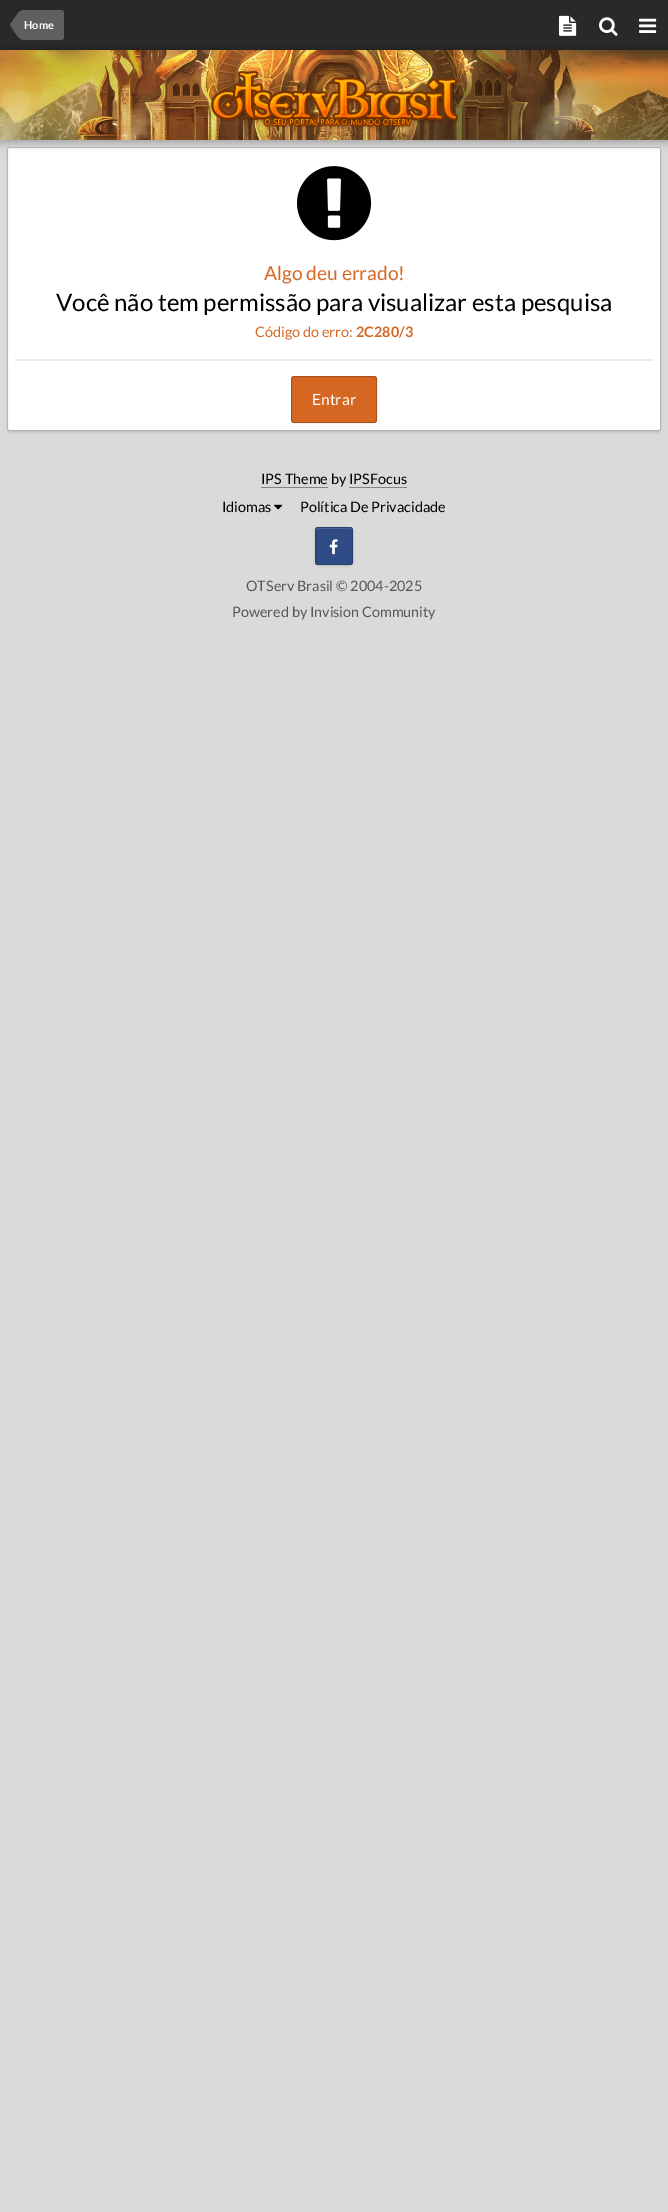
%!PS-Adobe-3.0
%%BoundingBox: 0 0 668 2212
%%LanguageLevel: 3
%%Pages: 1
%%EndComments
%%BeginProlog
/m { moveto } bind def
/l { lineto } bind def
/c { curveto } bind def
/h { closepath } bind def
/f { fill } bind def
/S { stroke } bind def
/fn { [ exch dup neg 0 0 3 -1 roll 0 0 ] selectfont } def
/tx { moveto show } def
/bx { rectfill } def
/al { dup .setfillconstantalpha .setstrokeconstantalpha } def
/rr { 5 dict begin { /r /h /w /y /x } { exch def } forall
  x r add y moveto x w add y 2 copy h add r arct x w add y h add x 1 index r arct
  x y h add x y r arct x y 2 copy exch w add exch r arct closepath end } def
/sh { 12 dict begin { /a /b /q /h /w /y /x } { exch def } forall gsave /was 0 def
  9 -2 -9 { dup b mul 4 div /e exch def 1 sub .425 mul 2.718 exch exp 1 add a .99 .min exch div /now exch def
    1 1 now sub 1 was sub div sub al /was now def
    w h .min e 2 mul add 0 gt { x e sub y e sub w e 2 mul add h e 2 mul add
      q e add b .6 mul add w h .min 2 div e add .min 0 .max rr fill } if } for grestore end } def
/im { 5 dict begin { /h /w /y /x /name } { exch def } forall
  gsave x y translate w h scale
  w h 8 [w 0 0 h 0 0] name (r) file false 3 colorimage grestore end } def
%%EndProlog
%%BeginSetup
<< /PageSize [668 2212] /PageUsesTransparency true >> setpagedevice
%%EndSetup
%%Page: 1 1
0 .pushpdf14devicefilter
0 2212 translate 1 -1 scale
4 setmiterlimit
0.855 setgray
0 0 668 2212 bx
0.161 setgray
0 0 668 50 bx
0.373 setgray
24 10 m 61 10 l 62.5 10 64 11.5 64 13 c 64 37 l 64 38.5 62.5 40 61 40 c 24 40 l h f
24 25 m 24 40 l 22 40 19.5 38.5 17 35.5 c 10 25 l h 24 25 m 10 25 l 10 24 18.5 12.5 19 12 c 20.5 11 22 10 24 10 c h f
/Lato-Bold 11 fn
1 setgray
(Home) 24 29 tx
(image0.raw) 559 15 18 21 im
(image1.raw) 599 17 19 19 im
(image2.raw) 639 18 18 15 im
0 setgray
7 149 654 284 3 1 0.08 sh
1 setgray
8 148 652 282 2 rr f
0.11 al
0 setgray
7.5 147.5 653 283 2.5 rr S
1 al
0 51 668 90 0 5 0.35 sh
(image3.raw) 0 50 668 90 im
(image4.raw) 210 70 249 61 im
(image5.raw) 297 166 75 75 im
/Lato-Regular 19.25 fn
0.839 0.404 0.137 setrgbcolor
(Algo deu errado!) 264 280 tx
/Lato-Regular 24 fn
0 setgray
(Você não tem permissão para visualizar esta pesquisa) 56 311 tx
/Lato-Regular 14.4 fn
0.839 0.404 0.137 setrgbcolor
(Código do erro:) 255 337 tx
/Lato-Bold 14.4 fn
(2C280/3) 356 337 tx
0.922 setgray
15 359 638 2 bx
0.839 0.404 0.137 setrgbcolor
291 376 86 47 3 rr f
0.2 al
0 setgray
291.5 376.5 85 46 2.5 rr S
/Lato-Regular 15.5 fn
1 al
1 setgray
(Entrar) 312 405 tx
/Lato-Regular 14.4 fn
0 setgray
(IPS Theme by IPSFocus) 261 484 tx
0.514 setgray
261 487 67 1 bx
349 487 58 1 bx
0 setgray
(Idiomas) 222 512 tx
(image6.raw) 274 504 9 6 im
(Política De Privacidade) 300 512 tx
315 528 38 38 3 1.5 0.1 sh
0.188 0.298 0.529 setrgbcolor
315 527 38 38 3 rr f
0.31 0.404 0.6 setrgbcolor
318 529 m 317 529 316 530 316 531 c 316 526.5 319.5 528 323.5 528 c 344.5 528 l 348.5 528 352 526.5 352 531 c 352 530 351 529 350 529 c h f
(image7.raw) 329 539 9 16 im
0.2 al
0 setgray
315.5 527.5 37 37 2.5 rr S
1 al
0.341 setgray
(OTServ Brasil © 2004-2025) 246 591 tx
(Powered by Invision Community) 232 617 tx
.poppdf14devicefilter showpage
%%EOF
